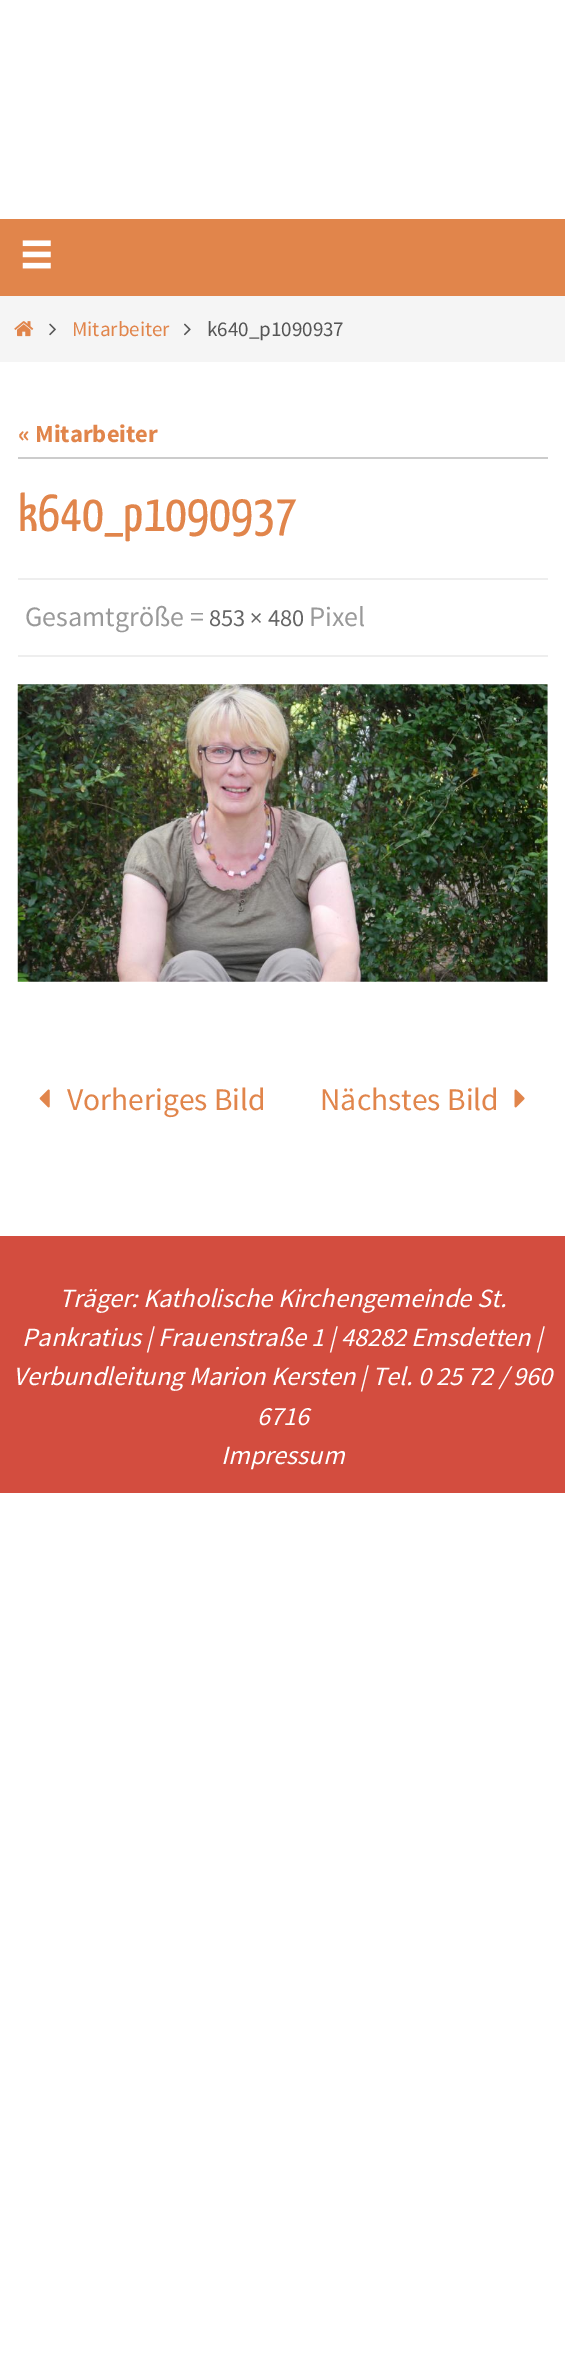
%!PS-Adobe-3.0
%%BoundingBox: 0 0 565 2358
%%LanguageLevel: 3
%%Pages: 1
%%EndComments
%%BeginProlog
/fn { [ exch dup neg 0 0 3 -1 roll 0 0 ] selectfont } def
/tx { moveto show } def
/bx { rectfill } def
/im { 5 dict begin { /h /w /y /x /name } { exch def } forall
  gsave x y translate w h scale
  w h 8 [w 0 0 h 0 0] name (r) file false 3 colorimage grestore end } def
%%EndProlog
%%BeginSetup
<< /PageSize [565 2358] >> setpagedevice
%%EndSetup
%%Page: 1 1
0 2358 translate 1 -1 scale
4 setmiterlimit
1 setgray
0 0 565 2358 bx
0.882 0.522 0.294 setrgbcolor
0 219 565 77 bx
(image0.raw) 22 240 29 29 im
0.961 setgray
0 296 565 66 bx
(image1.raw) 14 321 20 16 im
(image2.raw) 49 323 7 13 im
/SourceSansPro-Regular 21 fn
0.882 0.522 0.294 setrgbcolor
(Mitarbeiter) 72 336 tx
(image3.raw) 184 323 7 13 im
0.333 setgray
(k640_p1090937) 207 336 tx
0.8 setgray
18 457 530 2 bx
/SourceSansPro-Bold 24.5 fn
0.882 0.522 0.294 setrgbcolor
(« Mitarbeiter) 18 442 tx
/YanoneKaffeesatz-Regular 52.5 fn
(k640_p1090937) 18 531 tx
0.933 setgray
18 578 530 2 bx
18 655 530 2 bx
/SourceSansPro-Regular 28 fn
0.6 setgray
(Gesamtgröße =) 25 626 tx
/SourceSansPro-Regular 24.5 fn
0.4 setgray
(853 × 480) 209 626 tx
/SourceSansPro-Regular 28 fn
0.6 setgray
(Pixel) 309 626 tx
(image4.raw) 17 684 531 298 im
(image5.raw) 39 1089 11 19 im
/SourceSansPro-Regular 31.5 fn
0.882 0.522 0.294 setrgbcolor
(Vorheriges Bild) 67 1110 tx
(Nächstes Bild) 320 1110 tx
(image6.raw) 514 1089 11 19 im
0.827 0.302 0.247 setrgbcolor
0 1236 565 257 bx
/SourceSansPro-Italic 26.25 fn
1 setgray
(Träger: Katholische Kirchengemeinde St.) 59 1307 tx
(Pankratius | Frauenstraße 1 | 48282 Emsdetten |) 22 1346 tx
(Verbundleitung Marion Kersten | Tel. 0 25 72 / 960) 13 1385 tx
(6716) 257 1425 tx
(Impressum) 221 1464 tx
showpage
%%EOF
